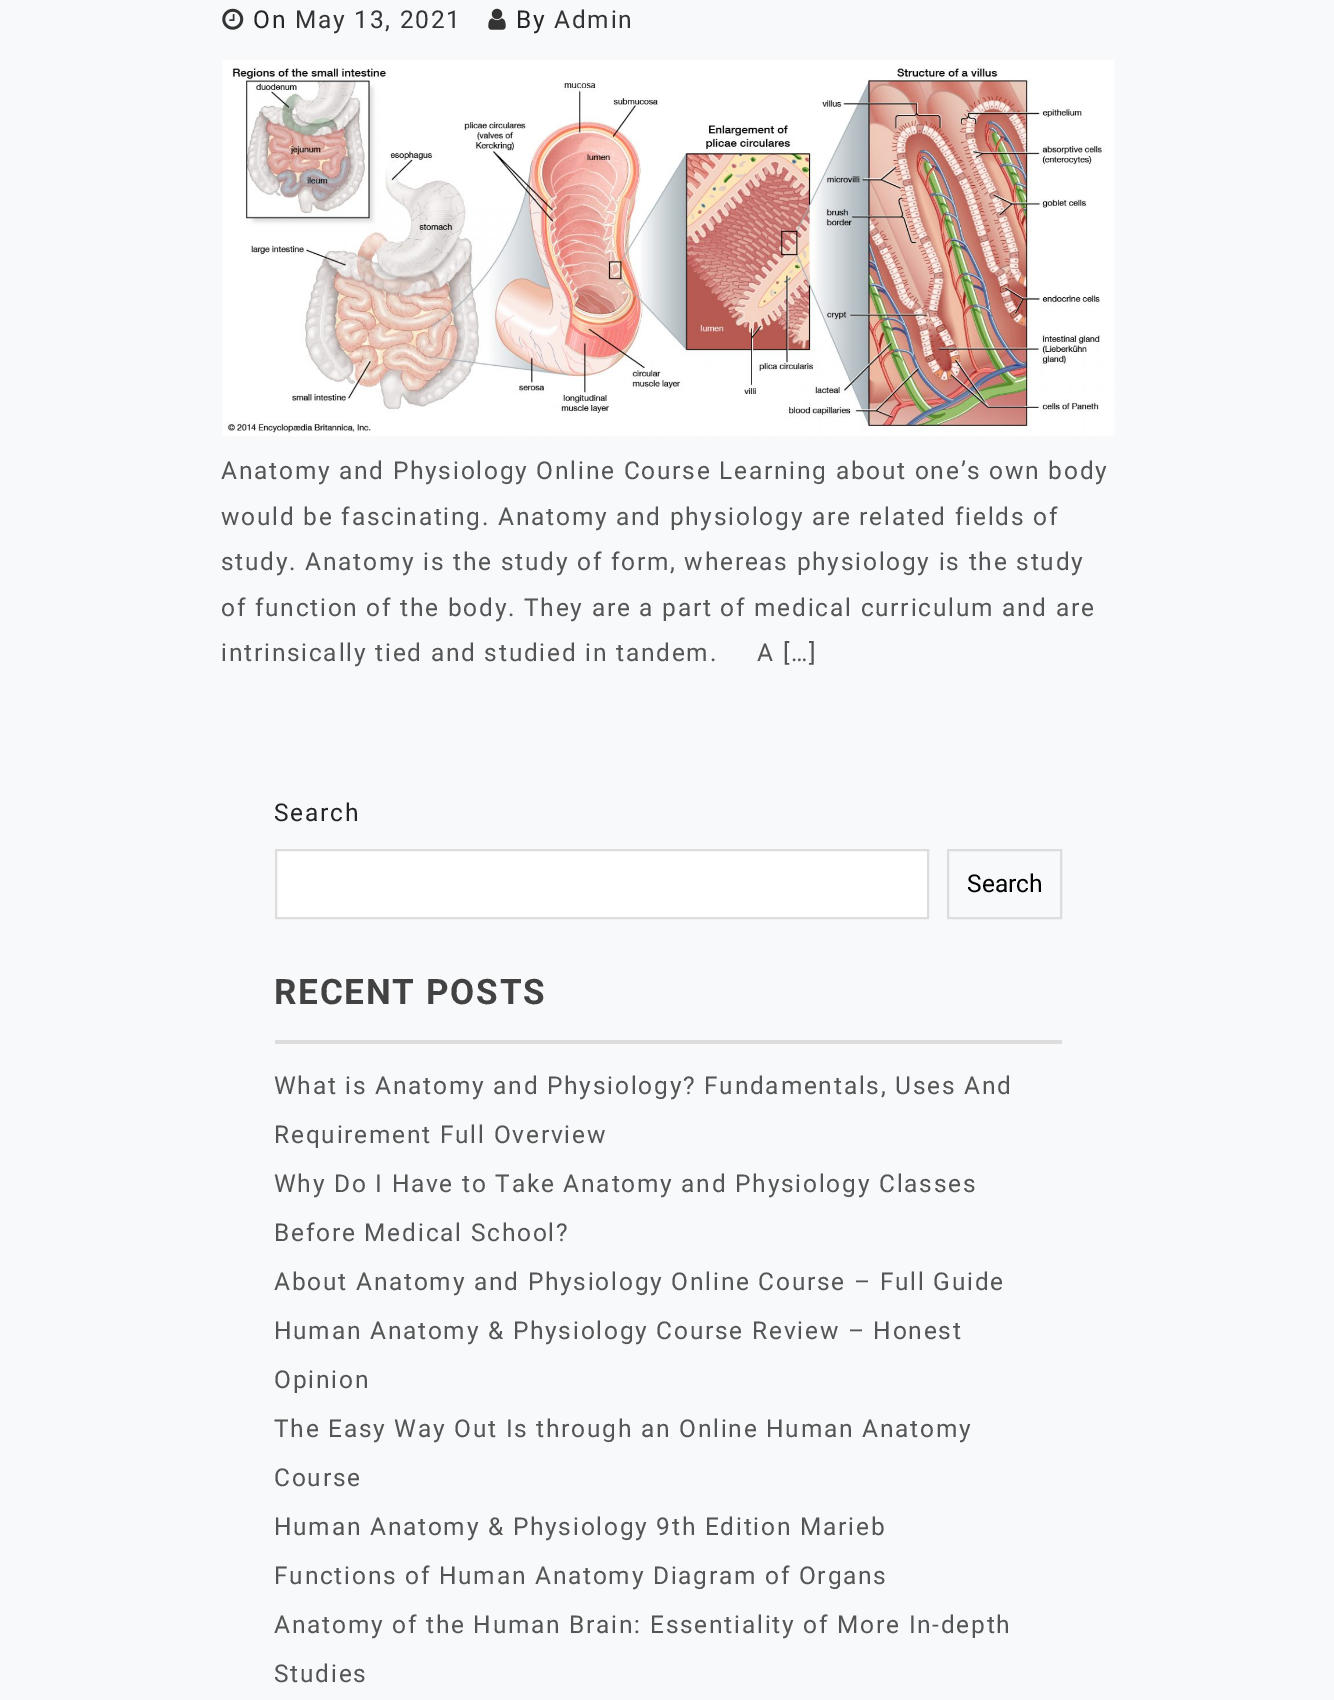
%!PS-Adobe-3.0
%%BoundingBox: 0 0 1334 1700
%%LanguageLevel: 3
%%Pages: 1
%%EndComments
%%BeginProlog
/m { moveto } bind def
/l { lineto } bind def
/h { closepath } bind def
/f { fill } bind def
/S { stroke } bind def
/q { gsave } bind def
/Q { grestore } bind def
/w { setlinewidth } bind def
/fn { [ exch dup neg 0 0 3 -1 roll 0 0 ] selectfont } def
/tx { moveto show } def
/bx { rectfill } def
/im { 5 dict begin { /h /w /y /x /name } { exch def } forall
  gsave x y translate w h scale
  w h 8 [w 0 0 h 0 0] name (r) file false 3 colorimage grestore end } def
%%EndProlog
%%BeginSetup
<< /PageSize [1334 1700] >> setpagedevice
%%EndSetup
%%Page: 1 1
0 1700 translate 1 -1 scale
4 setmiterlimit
0.973 0.976 0.98 setrgbcolor
0 0 1334 1700 bx
(image0.raw) 222 8 22 22 im
/Roboto-Regular 24.5 fn
0.145 setgray
253 28 m 1.75 0 (On) ashow
0.204 setgray
295 28 m 1.75 0 (May 13, 2021) ashow
(image1.raw) 488 8 18 22 im
0.145 setgray
516 28 m 1.75 0 (By) ashow
0.204 setgray
554 28 m 1.75 0 (Admin) ashow
(image2.raw) 222 60 893 376 im
0.333 setgray
221 479 m 1.75 0 (Anatomy and Physiology Online Course Learning about one’s own body) ashow
221 525 m 1.75 0 (would be fascinating. Anatomy and physiology are related fields of) ashow
221 570 m 1.75 0 (study. Anatomy is the study of form, whereas physiology is the study) ashow
221 616 m 1.75 0 (of function of the body. They are a part of medical curriculum and are) ashow
221 661 m 1.75 0 (intrinsically tied and studied in tandem.     A […]) ashow
0.145 setgray
274 821 m 1.75 0 (Search) ashow
1 setgray
276 850 m 928 850 l 928 918 l 276 918 l h q f Q
0.867 setgray
2 w
S
948 850 113 68 rectstroke
0 setgray
(Search) 967 892 tx
0.867 setgray
275 1040 787 4 bx
/Roboto-Bold 35 fn
0.259 setgray
274 1004 m 1.75 0 (RECENT POSTS) ashow
/Roboto-Regular 24.5 fn
0.333 setgray
274 1094 m 1.75 0 (What is Anatomy and Physiology? Fundamentals, Uses And) ashow
274 1143 m 1.75 0 (Requirement Full Overview) ashow
274 1192 m 1.75 0 (Why Do I Have to Take Anatomy and Physiology Classes) ashow
274 1241 m 1.75 0 (Before Medical School?) ashow
274 1290 m 1.75 0 (About Anatomy and Physiology Online Course – Full Guide) ashow
274 1339 m 1.75 0 (Human Anatomy & Physiology Course Review – Honest) ashow
274 1388 m 1.75 0 (Opinion) ashow
274 1437 m 1.75 0 (The Easy Way Out Is through an Online Human Anatomy) ashow
274 1486 m 1.75 0 (Course) ashow
274 1535 m 1.75 0 (Human Anatomy & Physiology 9th Edition Marieb) ashow
274 1584 m 1.75 0 (Functions of Human Anatomy Diagram of Organs) ashow
274 1633 m 1.75 0 (Anatomy of the Human Brain: Essentiality of More In-depth) ashow
274 1682 m 1.75 0 (Studies) ashow
showpage
%%EOF
